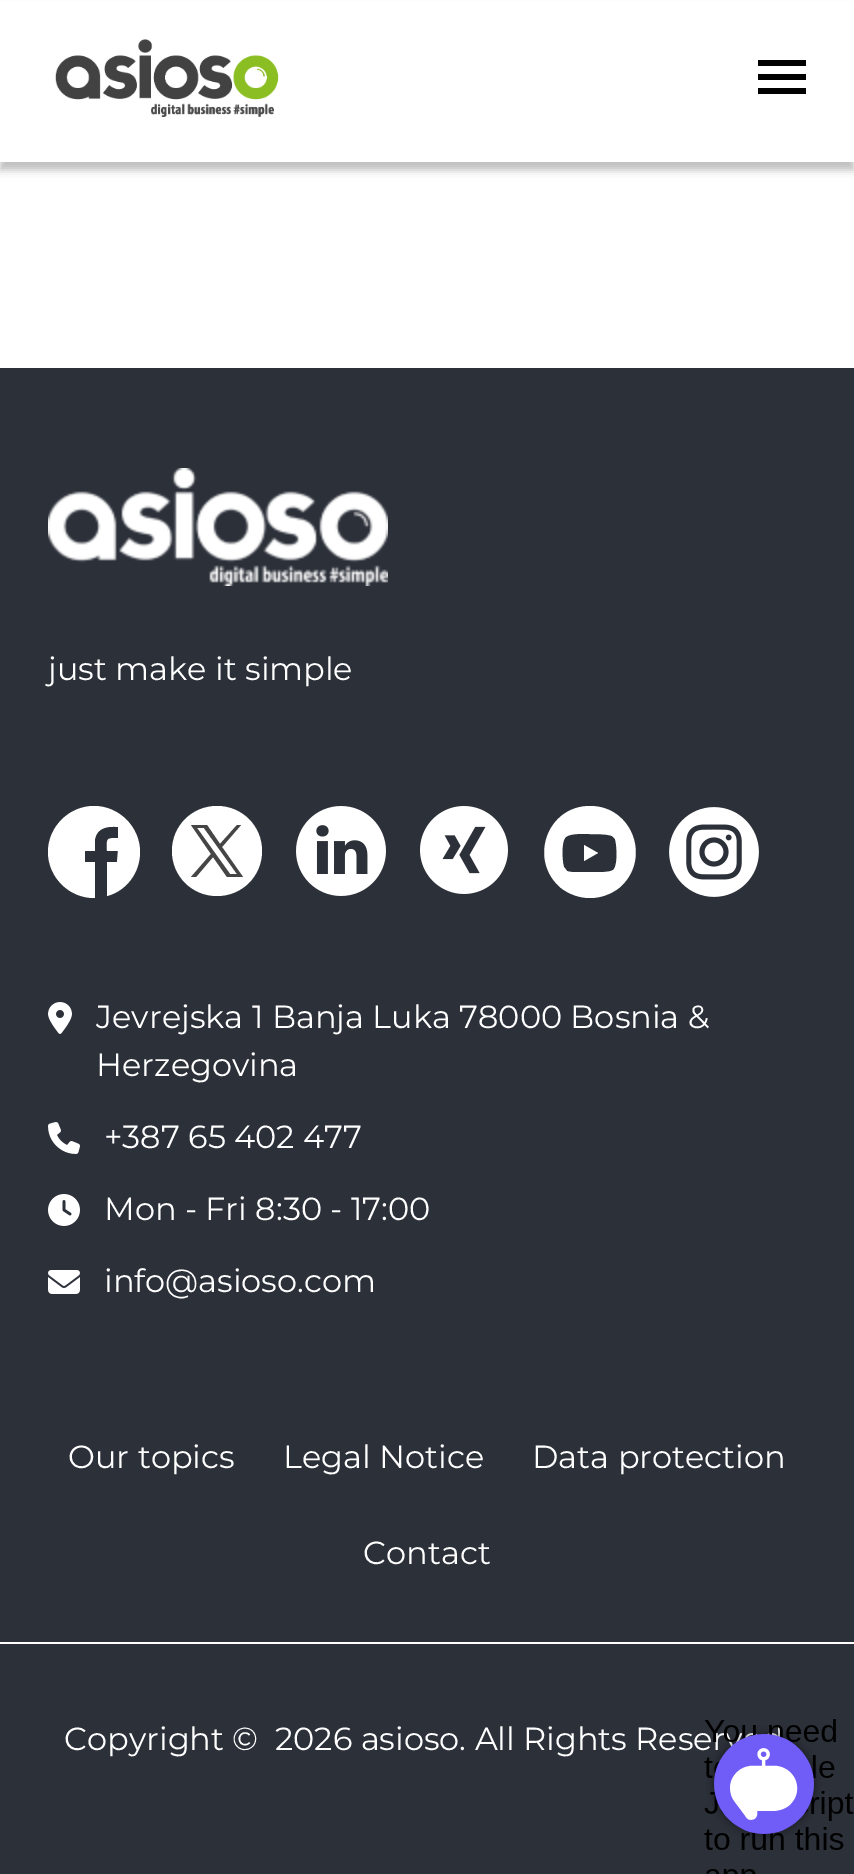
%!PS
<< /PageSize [854 1874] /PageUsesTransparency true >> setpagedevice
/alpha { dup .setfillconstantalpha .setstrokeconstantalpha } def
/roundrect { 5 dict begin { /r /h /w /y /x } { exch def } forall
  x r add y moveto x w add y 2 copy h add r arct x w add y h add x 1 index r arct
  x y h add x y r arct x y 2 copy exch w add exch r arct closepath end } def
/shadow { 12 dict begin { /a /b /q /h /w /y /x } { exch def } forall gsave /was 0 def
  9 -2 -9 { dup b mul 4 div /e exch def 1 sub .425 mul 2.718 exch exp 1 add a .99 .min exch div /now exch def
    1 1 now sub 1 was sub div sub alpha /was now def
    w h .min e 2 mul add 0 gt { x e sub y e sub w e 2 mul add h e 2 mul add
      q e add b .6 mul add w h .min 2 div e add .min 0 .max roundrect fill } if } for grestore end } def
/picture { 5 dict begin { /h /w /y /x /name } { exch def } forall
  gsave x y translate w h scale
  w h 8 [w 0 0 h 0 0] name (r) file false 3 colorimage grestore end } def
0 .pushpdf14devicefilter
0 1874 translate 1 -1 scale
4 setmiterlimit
1 setgray
0 0 854 1874 rectfill
0 setgray
0 8 854 162 0 4 0.25 shadow
1 setgray
0 1 854 161 rectfill
(img1.rgb) 55 39 224 78 picture
0 setgray
758 60 48 6 rectfill
758 74 48 6 rectfill
758 88 48 6 rectfill
0.173 0.188 0.224 setrgbcolor
0 368 854 1506 rectfill
(img2.rgb) 48 468 340 118 picture
/Montserrat-Regular [32 0 0 -32 0 0] selectfont
1 setgray
48 680 moveto (just make it simple) show
newpath 140 852 moveto 140 827 119 806 94 806 curveto 69 806 48 827 48 852 curveto 48 877 69 898 94 898 curveto 95 898 lineto 95 862 lineto 85 862 lineto 85 851 lineto 95 851 lineto 95 839 lineto 97 827 109 826 118 827 curveto 118 838 lineto 105 838 107 839 107 851 curveto 118 851 lineto 117 862 lineto 107 862 lineto 107 896 lineto 126 891 140 873 140 852 curveto closepath fill
newpath 217 806 moveto 192 806 172 826 172 851 curveto 172 876 192 896 217 896 curveto 242 896 262 876 262 851 curveto 262 826 242 806 217 806 curveto closepath fill
0.271 setgray
newpath 222 847 moveto 241 825 lineto 237 825 lineto 220 844 lineto 207 825 lineto 191 825 lineto 211 854 lineto 191 877 lineto 196 877 lineto 213 857 lineto 227 877 lineto 243 877 lineto closepath 197 828 moveto 204 828 lineto 237 874 lineto 230 874 lineto closepath fill
(img3.rgb) 296 806 90 90 picture
(img4.rgb) 420 806 88 88 picture
1 setgray
newpath 590 898 moveto 579 898 569 894 561 888 curveto 528 860 547 806 590 806 curveto 633 806 652 860 619 888 curveto 611 894 601 898 590 898 curveto closepath 589 834 moveto 584 834 570 833 566 837 curveto 561 840 562 862 564 867 curveto 567 871 lineto 571 873 584 872 589 872 curveto 595 872 609 873 613 870 curveto 618 867 617 845 615 839 curveto 612 836 lineto 608 834 595 834 589 834 curveto closepath 584 861 moveto 584 845 lineto 598 853 lineto closepath fill
(img5.rgb) 669 807 90 90 picture
(img6.rgb) 48 1002 24 32 picture
96 1028 moveto (Jevrejska 1 Banja Luka 78000 Bosnia &) show
96 1076 moveto (Herzegovina) show
(img7.rgb) 48 1122 32 32 picture
104 1148 moveto (+387 65 402 477) show
(img8.rgb) 48 1194 32 32 picture
104 1220 moveto (Mon - Fri 8:30 - 17:00) show
(img9.rgb) 48 1270 32 24 picture
104 1292 moveto (info@asioso.com) show
68 1468 moveto (Our topics) show
283 1468 moveto (Legal Notice) show
532 1468 moveto (Data protection) show
363 1564 moveto (Contact) show
0 1642 854 2 rectfill
64 1750 moveto (Copyright ©  2026 asioso. All Rights Rese) show
(img10.rgb) 704 1719 150 155 picture
.poppdf14devicefilter showpage
